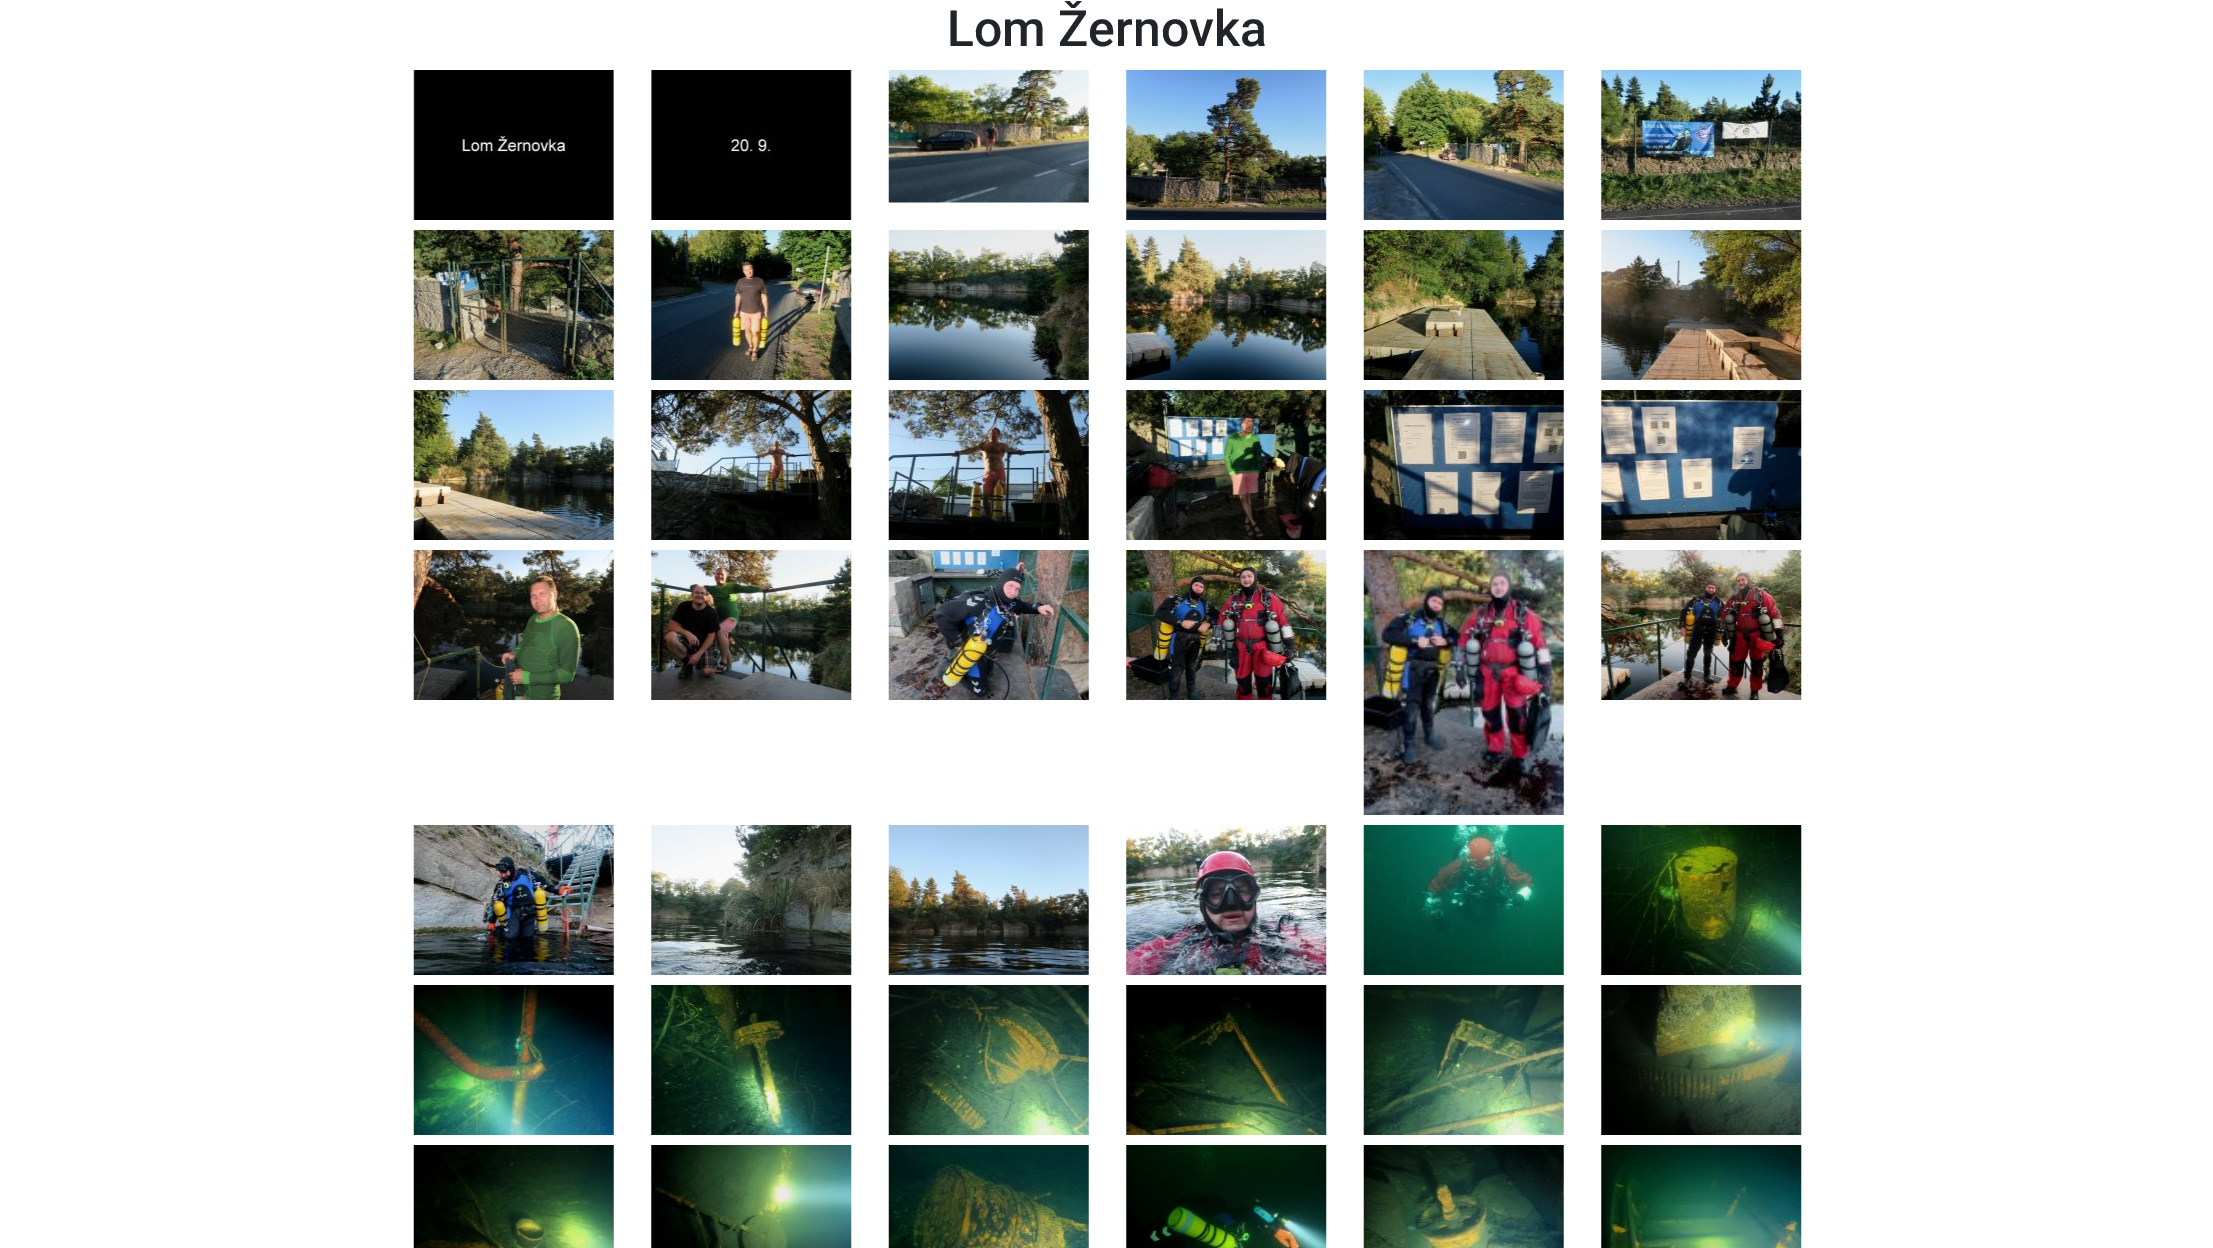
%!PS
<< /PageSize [2213 1248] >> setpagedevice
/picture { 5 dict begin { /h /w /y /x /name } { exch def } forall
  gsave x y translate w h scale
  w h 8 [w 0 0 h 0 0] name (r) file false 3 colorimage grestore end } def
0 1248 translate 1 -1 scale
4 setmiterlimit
1 setgray
0 0 2213 1248 rectfill
/Roboto-Medium [50 0 0 -50 0 0] selectfont
0.129 0.145 0.161 setrgbcolor
947 46 moveto (Lom Žernovka) show
(img1.rgb) 413 70 201 150 picture
(img2.rgb) 651 70 201 150 picture
(img3.rgb) 888 70 201 133 picture
(img4.rgb) 1126 70 201 150 picture
(img5.rgb) 1363 70 201 150 picture
(img6.rgb) 1601 70 201 150 picture
(img7.rgb) 413 230 201 150 picture
(img8.rgb) 651 230 201 150 picture
(img9.rgb) 888 230 201 150 picture
(img10.rgb) 1126 230 201 150 picture
(img11.rgb) 1363 230 201 150 picture
(img12.rgb) 1601 230 201 150 picture
(img13.rgb) 413 390 201 150 picture
(img14.rgb) 651 390 201 150 picture
(img15.rgb) 888 390 201 150 picture
(img16.rgb) 1126 390 201 150 picture
(img17.rgb) 1363 390 201 150 picture
(img18.rgb) 1601 390 201 150 picture
(img19.rgb) 413 550 201 150 picture
(img20.rgb) 651 550 201 150 picture
(img21.rgb) 888 550 201 150 picture
(img22.rgb) 1126 550 201 150 picture
(img23.rgb) 1363 550 201 265 picture
(img24.rgb) 1601 550 201 150 picture
(img25.rgb) 413 825 201 150 picture
(img26.rgb) 651 825 201 150 picture
(img27.rgb) 888 825 201 150 picture
(img28.rgb) 1126 825 201 150 picture
(img29.rgb) 1363 825 201 150 picture
(img30.rgb) 1601 825 201 150 picture
(img31.rgb) 413 985 201 150 picture
(img32.rgb) 651 985 201 150 picture
(img33.rgb) 888 985 201 150 picture
(img34.rgb) 1126 985 201 150 picture
(img35.rgb) 1363 985 201 150 picture
(img36.rgb) 1601 985 201 150 picture
(img37.rgb) 413 1145 201 103 picture
(img38.rgb) 651 1145 201 103 picture
(img39.rgb) 888 1145 201 103 picture
(img40.rgb) 1126 1145 201 103 picture
(img41.rgb) 1363 1145 201 103 picture
(img42.rgb) 1601 1145 201 103 picture
showpage
